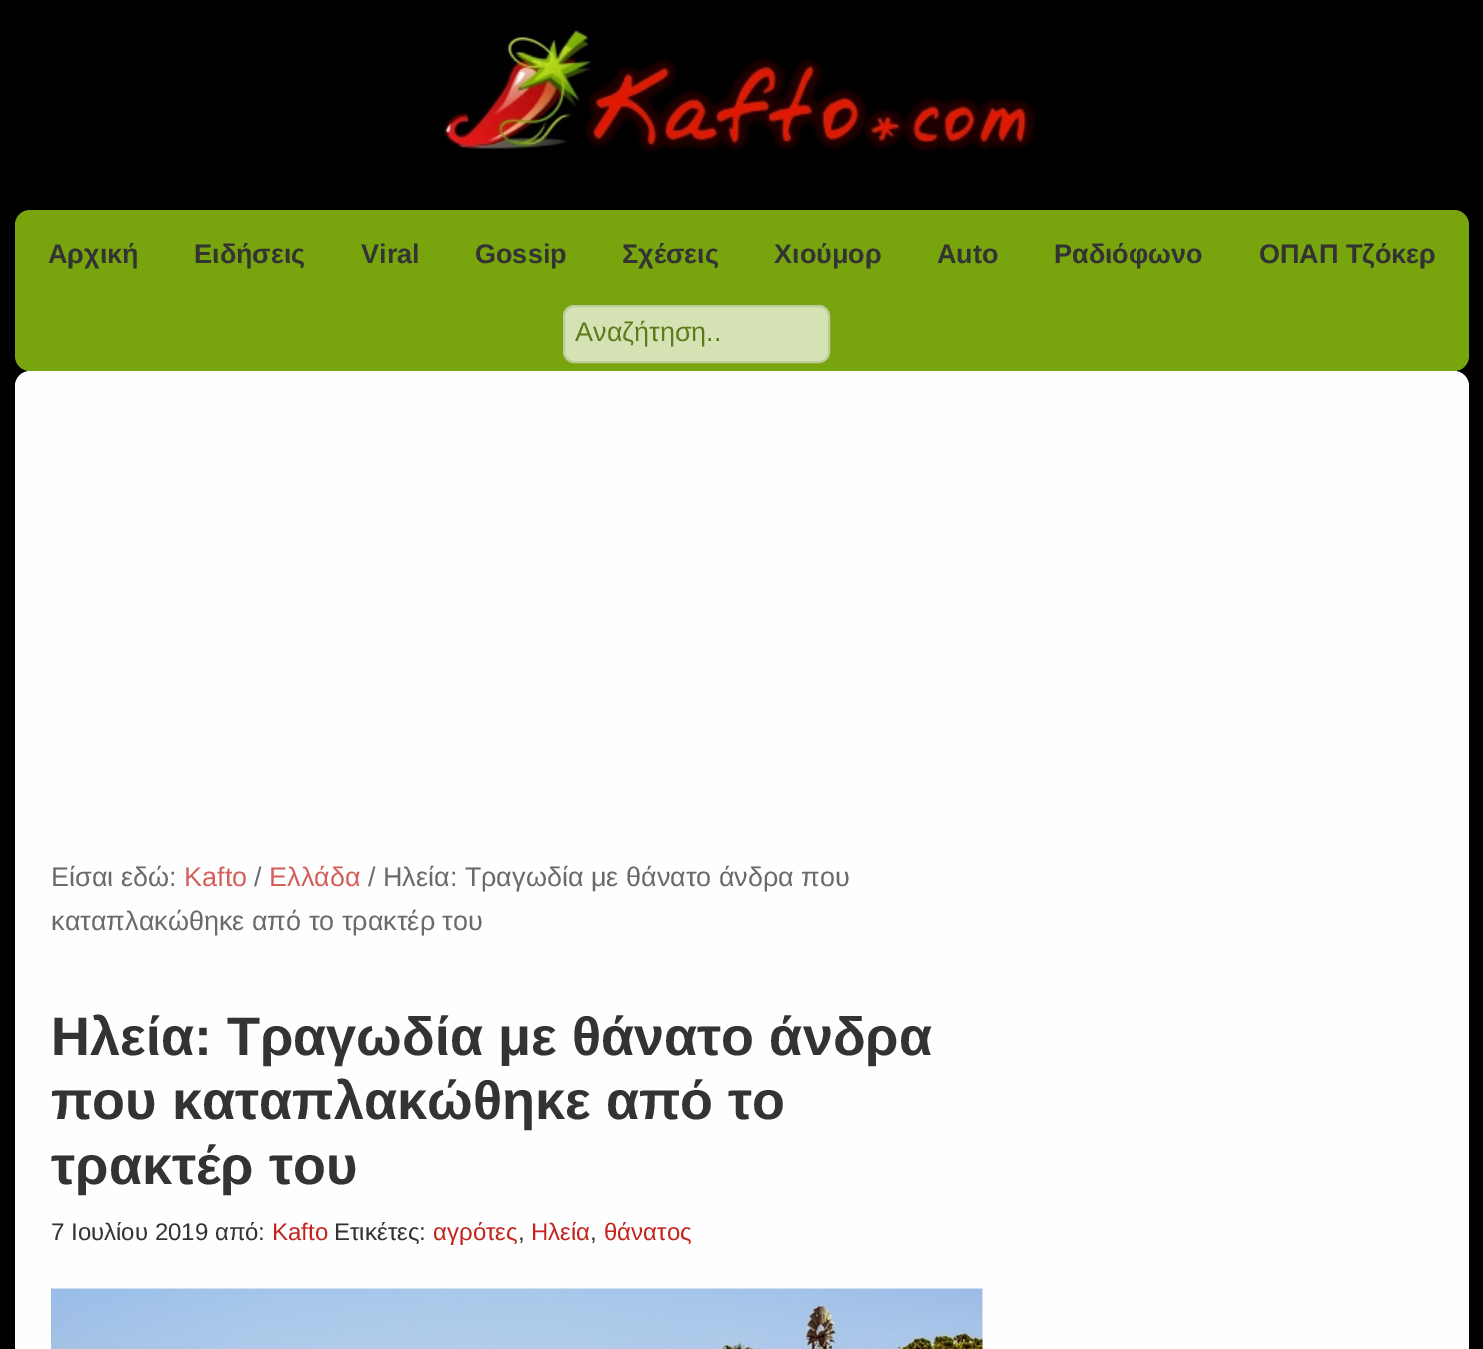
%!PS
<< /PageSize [1483 1349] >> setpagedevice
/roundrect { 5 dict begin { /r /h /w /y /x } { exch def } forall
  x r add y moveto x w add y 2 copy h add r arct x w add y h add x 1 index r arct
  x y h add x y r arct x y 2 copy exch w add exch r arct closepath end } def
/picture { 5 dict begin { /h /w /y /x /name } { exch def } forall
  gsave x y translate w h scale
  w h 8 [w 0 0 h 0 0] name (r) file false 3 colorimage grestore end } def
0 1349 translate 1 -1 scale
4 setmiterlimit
0 setgray
0 0 1483 1349 rectfill
(img1.rgb) 444 30 592 123 picture
0.471 0.647 0.055 setrgbcolor
15 210 1454 161 15 roundrect fill
/LiberationSans-Bold [27 0 0 -27 0 0] selectfont
0.2 setgray
48 263 moveto (Αρχική) show
194 263 moveto (Ειδήσεις) show
361 263 moveto (Viral) show
475 263 moveto (Gossip) show
622 263 moveto (Σχέσεις) show
774 263 moveto (Χιούμορ) show
937 263 moveto (Auto) show
1054 263 moveto (Ραδιόφωνο) show
1259 263 moveto (ΟΠΑΠ Τζόκερ) show
0.835 0.89 0.706 setrgbcolor
564 306 265 56 10 roundrect gsave fill grestore
0.745 0.8 0.616 setrgbcolor
2 setlinewidth
stroke
/LiberationSans-Regular [27 0 0 -27 0 0] selectfont
0.369 0.482 0.11 setrgbcolor
575 341 moveto (Αναζήτηση..) show
0.996 setgray
15 371 1454 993 15 roundrect fill
0.416 setgray
51 886 moveto (Είσαι εδώ:) show
0.827 0.376 0.353 setrgbcolor
184 886 moveto (Kafto) show
0.416 setgray
254 886 moveto (/) show
0.827 0.376 0.353 setrgbcolor
269 886 moveto (Ελλάδα) show
0.416 setgray
368 886 moveto (/ Ηλεία: Τραγωδία με θάνατο άνδρα που) show
51 930 moveto (καταπλακώθηκε από το τρακτέρ του) show
/LiberationSans-Bold [54 0 0 -54 0 0] selectfont
0.2 setgray
51 1055 moveto (Ηλεία: Τραγωδία με θάνατο άνδρα) show
51 1119 moveto (που καταπλακώθηκε από το) show
51 1184 moveto (τρακτέρ του) show
/LiberationSans-Regular [24 0 0 -24 0 0] selectfont
51 1240 moveto (7 Ιουλίου 2019 από:) show
0.765 0.145 0.114 setrgbcolor
272 1240 moveto (Kafto) show
0.2 setgray
334 1240 moveto (Ετικέτες:) show
0.765 0.145 0.114 setrgbcolor
433 1240 moveto (αγρότες) show
0.2 setgray
518 1240 moveto (,) show
0.765 0.145 0.114 setrgbcolor
531 1240 moveto (Ηλεία) show
0.2 setgray
590 1240 moveto (,) show
0.765 0.145 0.114 setrgbcolor
604 1240 moveto (θάνατος) show
(img2.rgb) 51 1288 932 61 picture
showpage
